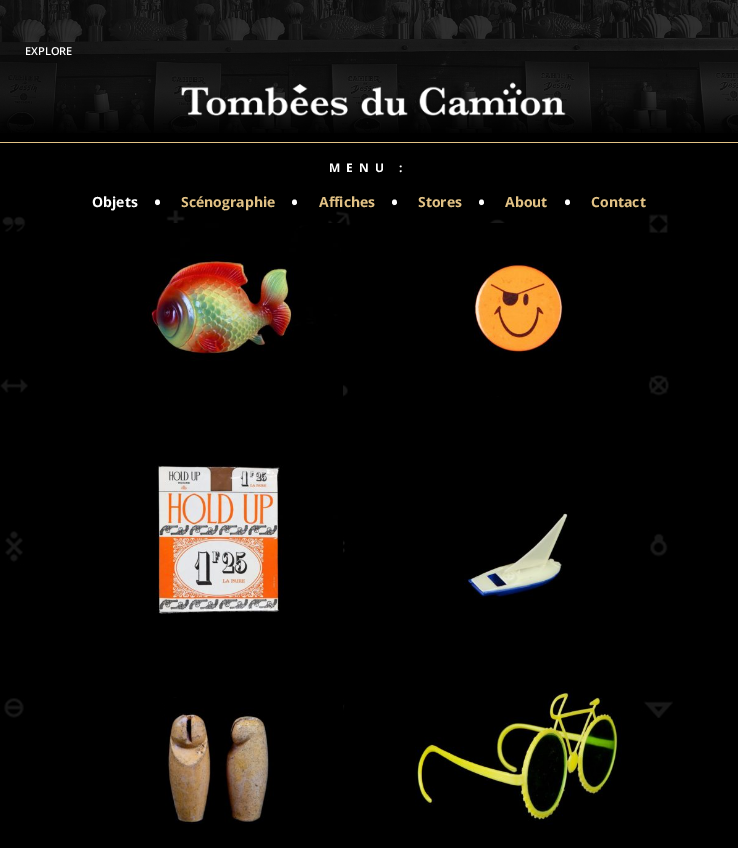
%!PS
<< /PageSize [738 848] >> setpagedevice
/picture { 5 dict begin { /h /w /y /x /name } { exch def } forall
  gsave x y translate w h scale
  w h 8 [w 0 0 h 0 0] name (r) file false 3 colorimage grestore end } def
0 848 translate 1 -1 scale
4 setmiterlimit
0 setgray
0 0 738 848 rectfill
(img1.rgb) 0 133 673 585 picture
(img2.rgb) 0 0 738 133 picture
/OpenSans-SemiBold [11 0 0 -11 0 0] selectfont
1 setgray
25 55 moveto (EXPLORE) show
(img3.rgb) 181 82 385 34 picture
0.886 0.761 0.522 setrgbcolor
0 142 738 1 rectfill
/OpenSans-Bold [12 0 0 -12 0 0] selectfont
1 setgray
329 172 moveto 6 0 (MENU :) ashow
/OpenSans-Bold [14 0 0 -14 0 0] selectfont
92 207 moveto (Objets) show
/OpenSans-Regular [24 0 0 -24 0 0] selectfont
153 211 moveto (•) show
/OpenSans-Bold [14 0 0 -14 0 0] selectfont
0.886 0.761 0.522 setrgbcolor
181 207 moveto (Scénographie) show
/OpenSans-Regular [24 0 0 -24 0 0] selectfont
1 setgray
290 211 moveto (•) show
/OpenSans-Bold [14 0 0 -14 0 0] selectfont
0.886 0.761 0.522 setrgbcolor
319 207 moveto (Affiches) show
/OpenSans-Regular [24 0 0 -24 0 0] selectfont
1 setgray
390 211 moveto (•) show
/OpenSans-Bold [14 0 0 -14 0 0] selectfont
0.886 0.761 0.522 setrgbcolor
418 207 moveto (Stores) show
/OpenSans-Regular [24 0 0 -24 0 0] selectfont
1 setgray
477 211 moveto (•) show
/OpenSans-Bold [14 0 0 -14 0 0] selectfont
0.886 0.761 0.522 setrgbcolor
505 207 moveto (About) show
/OpenSans-Regular [24 0 0 -24 0 0] selectfont
1 setgray
563 211 moveto (•) show
/OpenSans-Bold [14 0 0 -14 0 0] selectfont
0.886 0.761 0.522 setrgbcolor
591 207 moveto (Contact) show
(img4.rgb) 146 223 197 174 picture
(img5.rgb) 474 223 89 173 picture
(img6.rgb) 155 463 188 151 picture
(img7.rgb) 464 510 104 89 picture
(img8.rgb) 165 698 178 126 picture
(img9.rgb) 415 688 207 137 picture
showpage
